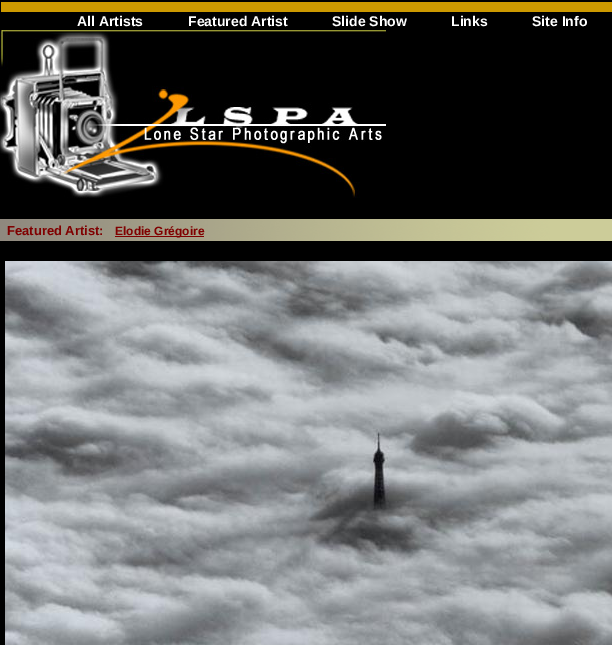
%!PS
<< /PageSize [612 645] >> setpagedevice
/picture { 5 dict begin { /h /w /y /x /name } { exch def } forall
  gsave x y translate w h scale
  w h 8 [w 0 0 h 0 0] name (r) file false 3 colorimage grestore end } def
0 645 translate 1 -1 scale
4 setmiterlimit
0 setgray
0 0 612 645 rectfill
0.8 0.6 0 setrgbcolor
1 2 611 10 rectfill
/LiberationSans-Bold [14 0 0 -14 0 0] selectfont
1 setgray
77 26 moveto (All Artists) show
188 26 moveto (Featured Artist) show
332 26 moveto (Slide Show) show
451 26 moveto (Links) show
532 26 moveto (Site Info) show
(img1.rgb) 0 30 386 168 picture
(img2.rgb) 0 219 612 22 picture
/LiberationSans-Bold [13 0 0 -13 0 0] selectfont
0.502 0 0 setrgbcolor
7 235 moveto (Featured Artist:) show
115 236 89 1 rectfill
/LiberationSans-Bold [12 0 0 -12 0 0] selectfont
115 235 moveto (Elodie Grégoire) show
(img3.rgb) 5 261 607 384 picture
showpage
